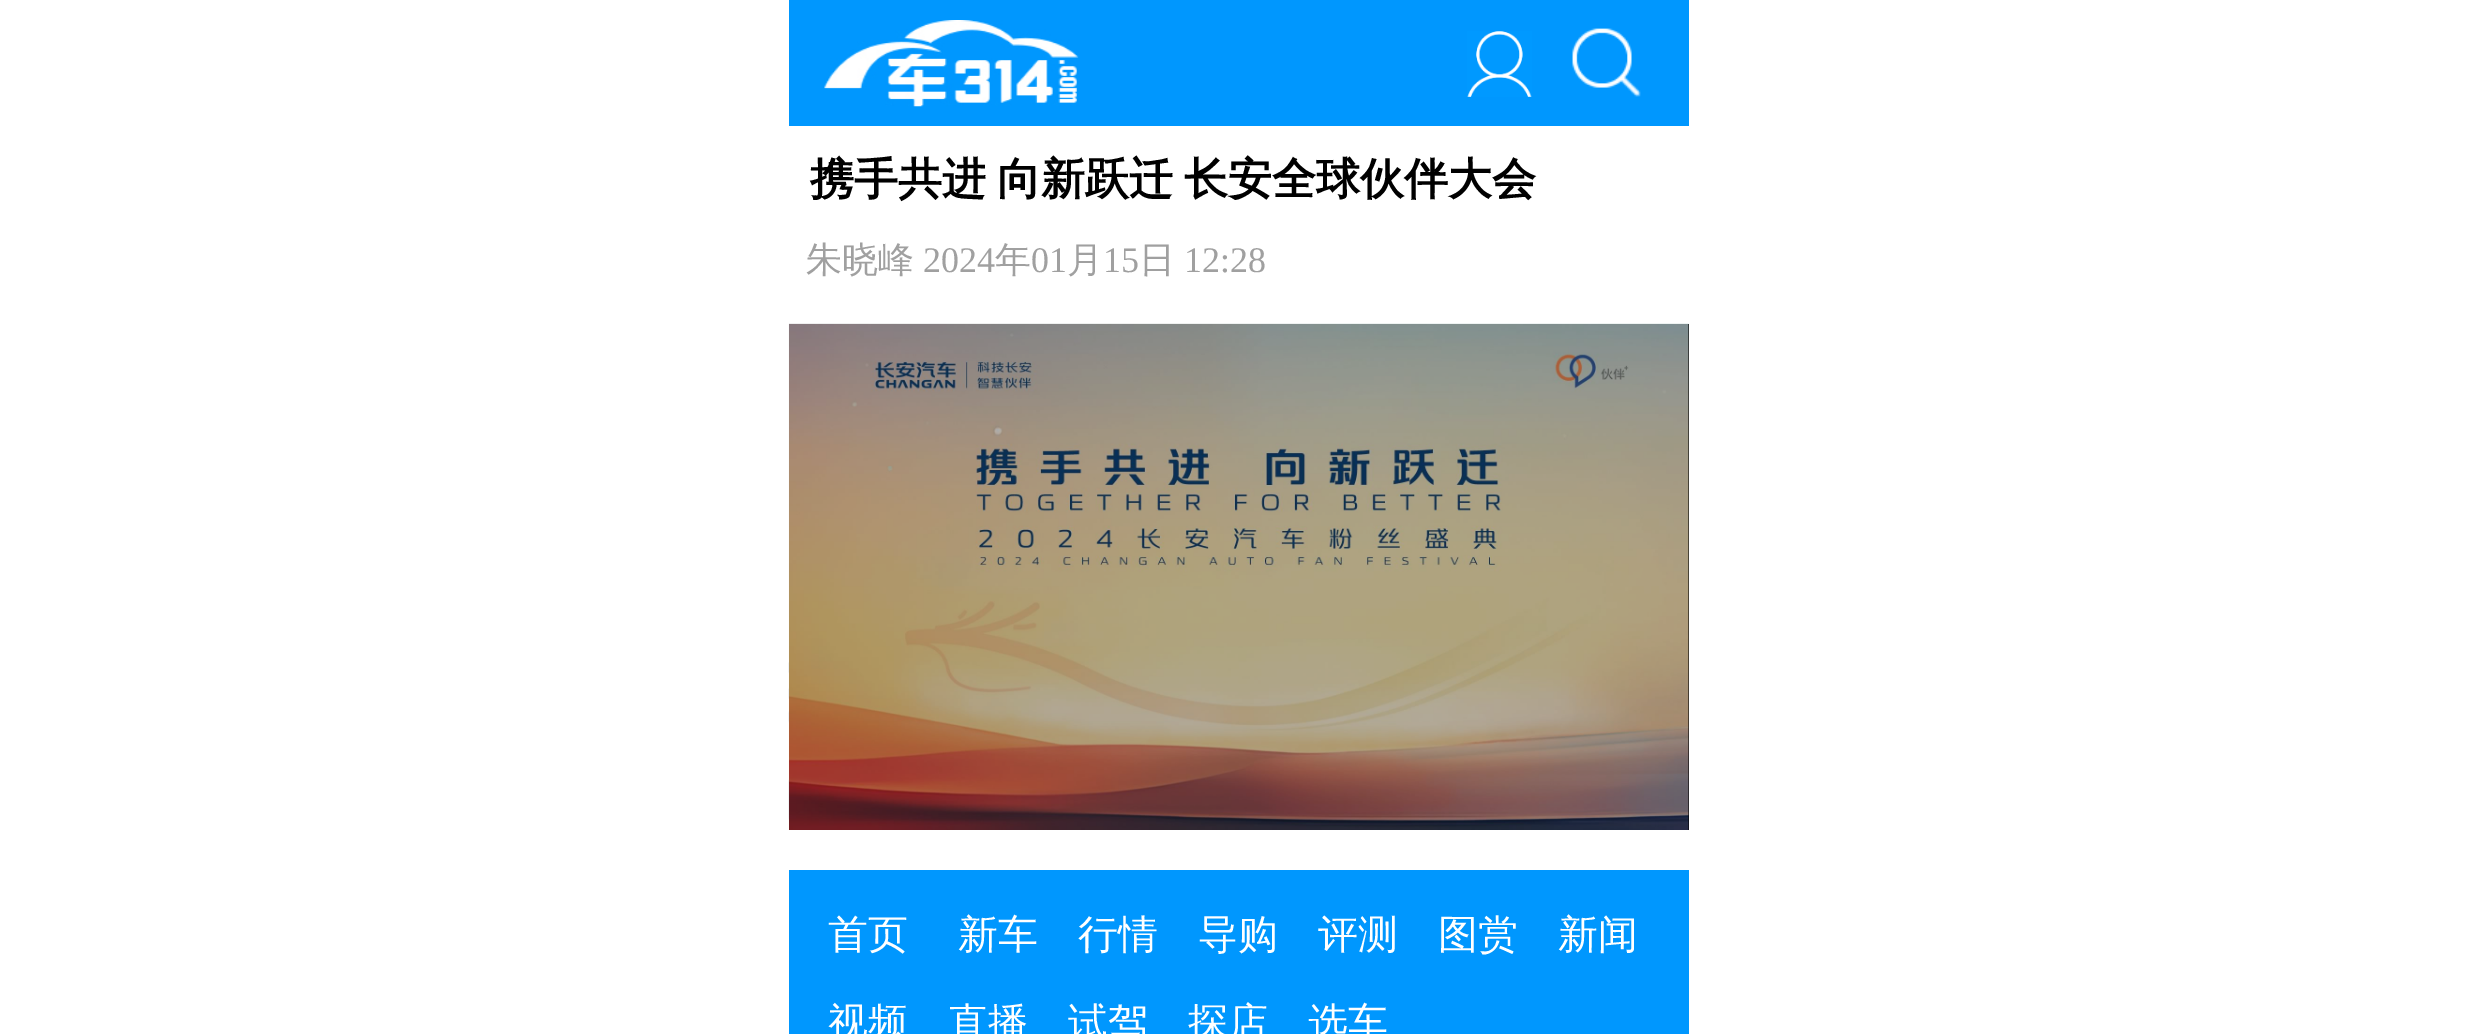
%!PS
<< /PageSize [2476 1034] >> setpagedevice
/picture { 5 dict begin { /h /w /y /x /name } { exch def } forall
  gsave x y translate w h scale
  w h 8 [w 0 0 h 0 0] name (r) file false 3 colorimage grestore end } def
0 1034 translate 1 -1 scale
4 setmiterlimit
1 setgray
0 0 2476 1034 rectfill
0 0.592 0.996 setrgbcolor
789 0 900 126 rectfill
(img1.rgb) 824 20 255 87 picture
(img2.rgb) 1467 31 65 66 picture
(img3.rgb) 1572 28 69 69 picture
/WenQuanYiZenHei-Bold [44 0 0 -44 0 0] selectfont
0 setgray
810 194 moveto -2 0 32 (携手共进 向新跃迁 长安全球伙伴大会) widthshow
/WenQuanYiZenHei-Medium [36 0 0 -36 0 0] selectfont
0.627 setgray
806 272 moveto (朱晓峰) show
/LiberationSerif-Regular [36 0 0 -36 0 0] selectfont
923 272 moveto (2024) show
/WenQuanYiZenHei-Medium [36 0 0 -36 0 0] selectfont
995 272 moveto (年) show
/LiberationSerif-Regular [36 0 0 -36 0 0] selectfont
1031 272 moveto (01) show
/WenQuanYiZenHei-Medium [36 0 0 -36 0 0] selectfont
1067 272 moveto (月) show
/LiberationSerif-Regular [36 0 0 -36 0 0] selectfont
1103 272 moveto (15) show
/WenQuanYiZenHei-Medium [36 0 0 -36 0 0] selectfont
1139 272 moveto (日) show
/LiberationSerif-Regular [36 0 0 -36 0 0] selectfont
1184 272 moveto (12:28) show
(img4.rgb) 788 323 901 507 picture
0 setgray
789 324 900 506 rectfill
(img5.rgb) 789 324 900 506 picture
0 0.592 0.996 setrgbcolor
789 870 900 164 rectfill
/WenQuanYiZenHei-Medium [40 0 0 -40 0 0] selectfont
1 setgray
828 948 moveto (首页) show
958 948 moveto (新车) show
1078 948 moveto (行情) show
1198 948 moveto (导购) show
1318 948 moveto (评测) show
1438 948 moveto (图赏) show
1558 948 moveto (新闻) show
828 1036 moveto (视频) show
948 1036 moveto (直播) show
1068 1036 moveto (试驾) show
1188 1036 moveto (探店) show
1308 1036 moveto (选车) show
showpage
